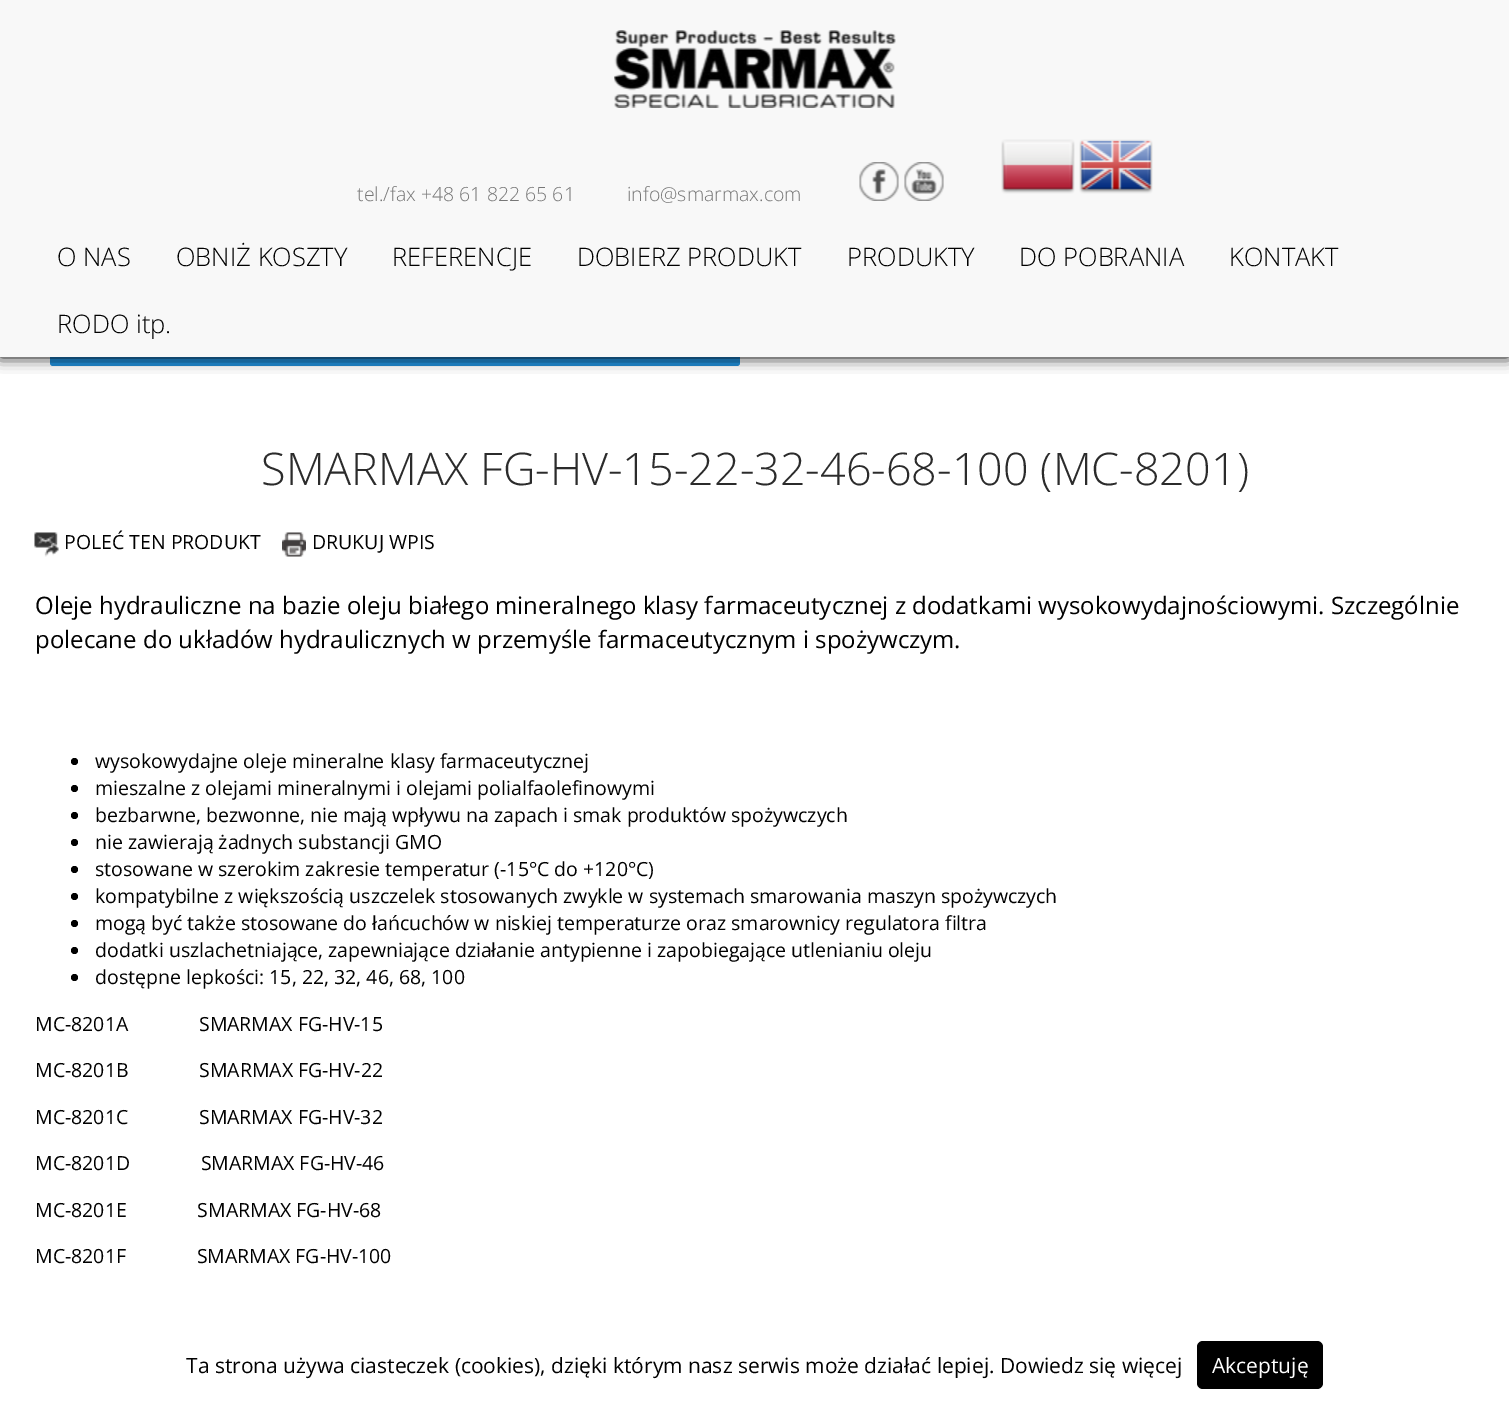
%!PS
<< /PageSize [1509 1403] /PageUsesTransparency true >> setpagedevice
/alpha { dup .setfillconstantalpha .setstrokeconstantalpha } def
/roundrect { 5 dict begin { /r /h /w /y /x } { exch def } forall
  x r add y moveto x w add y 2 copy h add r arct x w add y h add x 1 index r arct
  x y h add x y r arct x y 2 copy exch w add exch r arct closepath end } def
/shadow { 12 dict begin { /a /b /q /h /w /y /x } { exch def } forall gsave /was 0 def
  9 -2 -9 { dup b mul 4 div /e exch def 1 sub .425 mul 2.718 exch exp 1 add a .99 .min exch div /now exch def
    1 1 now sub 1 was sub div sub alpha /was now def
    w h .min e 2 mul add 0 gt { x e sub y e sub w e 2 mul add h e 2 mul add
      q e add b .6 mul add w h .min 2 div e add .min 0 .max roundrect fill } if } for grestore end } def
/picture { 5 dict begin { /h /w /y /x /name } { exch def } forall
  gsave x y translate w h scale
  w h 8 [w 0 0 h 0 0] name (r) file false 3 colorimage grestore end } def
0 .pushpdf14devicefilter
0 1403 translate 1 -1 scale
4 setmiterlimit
1 setgray
0 0 1509 1403 rectfill
0.129 0.557 0.855 setrgbcolor
50 270 690 96 3 roundrect fill
0 setgray
0 0 1509 357 0 7.5 1 shadow
0.973 setgray
0 0 1509 357 rectfill
(img1.rgb) 614 30 282 78 picture
/OpenSans-Light [19.5 0 0 -19.5 0 0] selectfont
0.467 setgray
357 201 moveto (tel./fax +48 61 822 65 61) show
627 201 moveto (info@smarmax.com) show
(img2.rgb) 859 162 40 39 picture
(img3.rgb) 904 162 40 39 picture
(img4.rgb) 1001 139 74 55 picture
(img5.rgb) 1079 139 74 55 picture
/OpenSans-Light [25.5 0 0 -25.5 0 0] selectfont
0 setgray
57 266 moveto (O NAS) show
176 266 moveto (OBNIŻ KOSZTY) show
392 266 moveto (REFERENCJE) show
577 266 moveto (DOBIERZ PRODUKT) show
847 266 moveto (PRODUKTY) show
1019 266 moveto (DO POBRANIA) show
1229 266 moveto (KONTAKT) show
57 333 moveto (RODO itp.) show
/OpenSans-Light [45 0 0 -45 0 0] selectfont
0.169 setgray
261 485 moveto (SMARMAX FG-HV-15-22-32-46-68-100 \(MC-8201\)) show
(img6.rgb) 34 532 25 25 picture
/OpenSans-Regular [19.5 0 0 -19.5 0 0] selectfont
0 setgray
64 549 moveto (POLEĆ TEN PRODUKT) show
(img7.rgb) 282 532 24 25 picture
312 549 moveto (DRUKUJ WPIS) show
/OpenSans-Regular [24 0 0 -24 0 0] selectfont
35 614 moveto (Oleje hydrauliczne na bazie oleju białego mineralnego klasy farmaceutycznej z dodatkami wysokowydajnościowymi. Szczególnie) show
35 648 moveto (polecane do układów hydraulicznych w przemyśle farmaceutycznym i spożywczym.) show
newpath 74.5 761.5 3.5 0 360 arc closepath fill
/OpenSans-Regular [19.5 0 0 -19.5 0 0] selectfont
95 768 moveto (wysokowydajne oleje mineralne klasy farmaceutycznej) show
newpath 74.5 788.5 3.5 0 360 arc closepath fill
95 795 moveto (mieszalne z olejami mineralnymi i olejami polialfaolefinowymi) show
newpath 74.5 815.5 3.5 0 360 arc closepath fill
95 822 moveto (bezbarwne, bezwonne, nie mają wpływu na zapach i smak produktów spożywczych) show
newpath 74.5 842.5 3.5 0 360 arc closepath fill
95 849 moveto (nie zawierają żadnych substancji GMO) show
newpath 74.5 869.5 3.5 0 360 arc closepath fill
95 876 moveto (stosowane w szerokim zakresie temperatur \(-15°C do +120°C\)) show
newpath 74.5 896.5 3.5 0 360 arc closepath fill
95 903 moveto (kompatybilne z większością uszczelek stosowanych zwykle w systemach smarowania maszyn spożywczych) show
newpath 74.5 923.5 3.5 0 360 arc closepath fill
95 930 moveto (mogą być także stosowane do łańcuchów w niskiej temperaturze oraz smarownicy regulatora filtra) show
newpath 74.5 950.5 3.5 0 360 arc closepath fill
95 957 moveto (dodatki uszlachetniające, zapewniające działanie antypienne i zapobiegające utlenianiu oleju) show
newpath 74.5 977.5 3.5 0 360 arc closepath fill
95 984 moveto (dostępne lepkości: 15, 22, 32, 46, 68, 100) show
35 1031 moveto (MC-8201A              SMARMAX FG-HV-15) show
35 1077 moveto (MC-8201B              SMARMAX FG-HV-22) show
35 1124 moveto (MC-8201C              SMARMAX FG-HV-32) show
35 1170 moveto (MC-8201D              SMARMAX FG-HV-46) show
35 1217 moveto (MC-8201E              SMARMAX FG-HV-68) show
35 1263 moveto (MC-8201F              SMARMAX FG-HV-100) show
/OpenSans-Regular [21 0 0 -21 0 0] selectfont
186 1373 moveto (Ta strona używa ciasteczek \(cookies\), dzięki którym nasz serwis może działać lepiej. Dowiedz się więcej) show
1197 1341 126 48 6 roundrect fill
1 setgray
1212 1373 moveto (Akceptuję) show
.poppdf14devicefilter showpage
